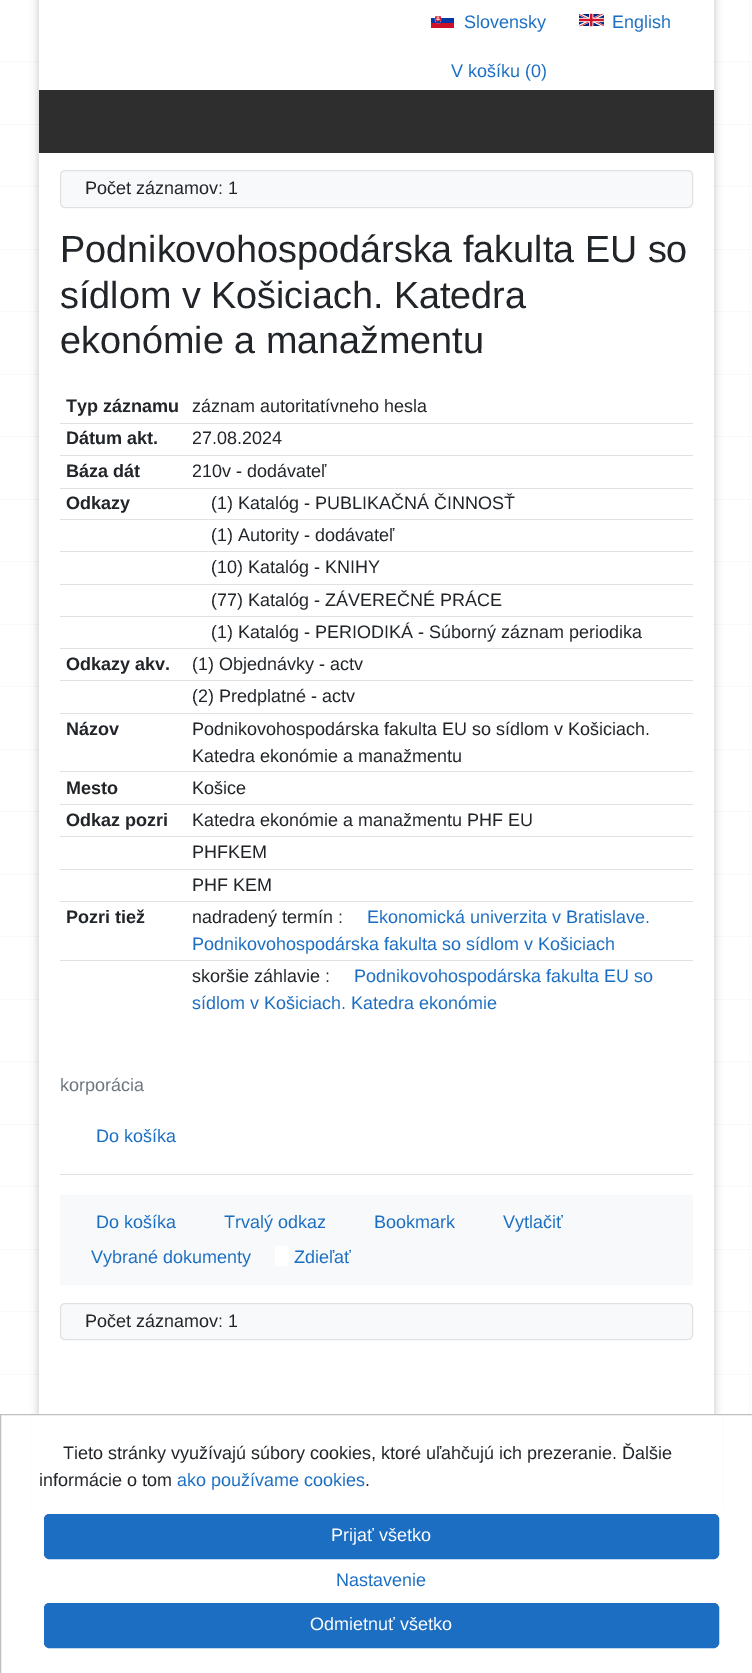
%!PS
<< /PageSize [752 1673] /PageUsesTransparency true >> setpagedevice
/alpha { dup .setfillconstantalpha .setstrokeconstantalpha } def
/roundrect { 5 dict begin { /r /h /w /y /x } { exch def } forall
  x r add y moveto x w add y 2 copy h add r arct x w add y h add x 1 index r arct
  x y h add x y r arct x y 2 copy exch w add exch r arct closepath end } def
/shadow { 12 dict begin { /a /b /q /h /w /y /x } { exch def } forall gsave /was 0 def
  9 -2 -9 { dup b mul 4 div /e exch def 1 sub .425 mul 2.718 exch exp 1 add a .99 .min exch div /now exch def
    1 1 now sub 1 was sub div sub alpha /was now def
    w h .min e 2 mul add 0 gt { x e sub y e sub w e 2 mul add h e 2 mul add
      q e add b .6 mul add w h .min 2 div e add .min 0 .max roundrect fill } if } for grestore end } def
/picture { 5 dict begin { /h /w /y /x /name } { exch def } forall
  gsave x y translate w h scale
  w h 8 [w 0 0 h 0 0] name (r) file false 3 colorimage grestore end } def
0 .pushpdf14devicefilter
0 1673 translate 1 -1 scale
4 setmiterlimit
1 setgray
0 0 752 1673 rectfill
0.973 0.976 0.98 setrgbcolor
749 0 1 1414 rectfill
(img1.rgb) 0 61 752 1314 picture
0 setgray
38 -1 677 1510 0 4 0.2 shadow
1 setgray
39 0 675 1414 rectfill
(img2.rgb) 431 16 23 12 picture
/LiberationSans-Regular [18 0 0 -18 0 0] selectfont
0.106 0.431 0.761 setrgbcolor
464 28 moveto (Slovensky) show
(img3.rgb) 579 13 25 14 picture
612 28 moveto (English) show
451 77 moveto (V košíku \(0\)) show
0.18 setgray
39 90 675 63 rectfill
0.973 0.976 0.98 setrgbcolor
60 170 633 38 5 roundrect fill
0.12 alpha
0.2 setgray
60.5 170.5 632 37 4.5 roundrect stroke
1 alpha
0.129 0.145 0.161 setrgbcolor
85 194 moveto (Počet záznamov: 1) show
/LiberationSans-Regular [37.75 0 0 -37.75 0 0] selectfont
60 262 moveto (Podnikovohospodárska fakulta EU so) show
60 308 moveto (sídlom v Košiciach. Katedra) show
60 353 moveto (ekonómie a manažmentu) show
/LiberationSans-Bold [18 0 0 -18 0 0] selectfont
66 412 moveto (Typ záznamu) show
/LiberationSans-Regular [18 0 0 -18 0 0] selectfont
192 412 moveto (záznam autoritatívneho hesla) show
/LiberationSans-Bold [18 0 0 -18 0 0] selectfont
66 444 moveto (Dátum akt.) show
0.871 0.886 0.902 setrgbcolor
60 423 633 1 rectfill
/LiberationSans-Regular [18 0 0 -18 0 0] selectfont
0.129 0.145 0.161 setrgbcolor
192 444 moveto (27.08.2024) show
/LiberationSans-Bold [18 0 0 -18 0 0] selectfont
66 477 moveto (Báza dát) show
0.871 0.886 0.902 setrgbcolor
60 455 633 1 rectfill
/LiberationSans-Regular [18 0 0 -18 0 0] selectfont
0.129 0.145 0.161 setrgbcolor
192 477 moveto (210v - dodávateľ) show
/LiberationSans-Bold [18 0 0 -18 0 0] selectfont
66 509 moveto (Odkazy) show
0.871 0.886 0.902 setrgbcolor
60 488 633 1 rectfill
/LiberationSans-Regular [18 0 0 -18 0 0] selectfont
0.129 0.145 0.161 setrgbcolor
211 509 moveto (\(1\) Katalóg - PUBLIKAČNÁ ČINNOSŤ) show
0.871 0.886 0.902 setrgbcolor
60 519 633 1 rectfill
0.129 0.145 0.161 setrgbcolor
211 541 moveto (\(1\) Autority - dodávateľ) show
0.871 0.886 0.902 setrgbcolor
60 551 633 1 rectfill
0.129 0.145 0.161 setrgbcolor
211 573 moveto (\(10\) Katalóg - KNIHY) show
0.871 0.886 0.902 setrgbcolor
60 584 633 1 rectfill
0.129 0.145 0.161 setrgbcolor
211 606 moveto (\(77\) Katalóg - ZÁVEREČNÉ PRÁCE) show
0.871 0.886 0.902 setrgbcolor
60 616 633 1 rectfill
0.129 0.145 0.161 setrgbcolor
211 638 moveto (\(1\) Katalóg - PERIODIKÁ - Súborný záznam periodika) show
/LiberationSans-Bold [18 0 0 -18 0 0] selectfont
66 670 moveto (Odkazy akv.) show
0.871 0.886 0.902 setrgbcolor
60 648 633 1 rectfill
/LiberationSans-Regular [18 0 0 -18 0 0] selectfont
0.129 0.145 0.161 setrgbcolor
192 670 moveto (\(1\) Objednávky - actv) show
0.871 0.886 0.902 setrgbcolor
60 680 633 1 rectfill
0.129 0.145 0.161 setrgbcolor
192 702 moveto (\(2\) Predplatné - actv) show
/LiberationSans-Bold [18 0 0 -18 0 0] selectfont
66 735 moveto (Názov) show
0.871 0.886 0.902 setrgbcolor
60 713 633 1 rectfill
/LiberationSans-Regular [18 0 0 -18 0 0] selectfont
0.129 0.145 0.161 setrgbcolor
192 735 moveto (Podnikovohospodárska fakulta EU so sídlom v Košiciach.) show
192 762 moveto (Katedra ekonómie a manažmentu) show
/LiberationSans-Bold [18 0 0 -18 0 0] selectfont
66 794 moveto (Mesto) show
0.871 0.886 0.902 setrgbcolor
60 771 633 1 rectfill
/LiberationSans-Regular [18 0 0 -18 0 0] selectfont
0.129 0.145 0.161 setrgbcolor
192 794 moveto (Košice) show
/LiberationSans-Bold [18 0 0 -18 0 0] selectfont
66 826 moveto (Odkaz pozri) show
0.871 0.886 0.902 setrgbcolor
60 804 633 1 rectfill
/LiberationSans-Regular [18 0 0 -18 0 0] selectfont
0.129 0.145 0.161 setrgbcolor
192 826 moveto (Katedra ekonómie a manažmentu PHF EU) show
0.871 0.886 0.902 setrgbcolor
60 836 633 1 rectfill
0.129 0.145 0.161 setrgbcolor
192 858 moveto (PHFKEM) show
0.871 0.886 0.902 setrgbcolor
60 869 633 1 rectfill
0.129 0.145 0.161 setrgbcolor
192 891 moveto (PHF KEM) show
/LiberationSans-Bold [18 0 0 -18 0 0] selectfont
66 923 moveto (Pozri tiež) show
0.871 0.886 0.902 setrgbcolor
60 901 633 1 rectfill
/LiberationSans-Regular [18 0 0 -18 0 0] selectfont
0.129 0.145 0.161 setrgbcolor
192 923 moveto (nadradený termín :) show
0.106 0.431 0.761 setrgbcolor
367 923 moveto (Ekonomická univerzita v Bratislave.) show
192 950 moveto (Podnikovohospodárska fakulta so sídlom v Košiciach) show
0.871 0.886 0.902 setrgbcolor
60 960 633 1 rectfill
0.129 0.145 0.161 setrgbcolor
192 982 moveto (skoršie záhlavie :) show
0.106 0.431 0.761 setrgbcolor
354 982 moveto (Podnikovohospodárska fakulta EU so) show
192 1009 moveto (sídlom v Košiciach. Katedra ekonómie) show
0.424 0.459 0.49 setrgbcolor
60 1091 moveto (korporácia) show
0.106 0.431 0.761 setrgbcolor
96 1142 moveto (Do košíka) show
0.871 0.886 0.902 setrgbcolor
60 1174 633 1 rectfill
0.973 0.976 0.98 setrgbcolor
60 1195 633 90 rectfill
0.106 0.431 0.761 setrgbcolor
96 1228 moveto (Do košíka) show
224 1228 moveto (Trvalý odkaz) show
374 1228 moveto (Bookmark) show
503 1228 moveto (Vytlačiť) show
91 1263 moveto (Vybrané dokumenty) show
294 1263 moveto (Zdieľať) show
1 setgray
275 1246 14 20 rectfill
0.973 0.976 0.98 setrgbcolor
60 1303 633 37 5 roundrect fill
0.12 alpha
0.2 setgray
60.5 1303.5 632 36 4.5 roundrect stroke
1 alpha
0.129 0.145 0.161 setrgbcolor
85 1327 moveto (Počet záznamov: 1) show
1 setgray
31 1415 691 101 rectfill
0.753 setgray
0.5 1414.5 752 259 rectstroke
0.129 0.145 0.161 setrgbcolor
63 1459 moveto (Tieto stránky využívajú súbory cookies, ktoré uľahčujú ich prezeranie. Ďalšie) show
39 1486 moveto (informácie o tom) show
0.106 0.431 0.761 setrgbcolor
177 1486 moveto (ako používame cookies) show
0.129 0.145 0.161 setrgbcolor
365 1486 moveto (.) show
0.106 0.431 0.761 setrgbcolor
44.5 1514.5 674 44 4.5 roundrect gsave fill grestore
stroke
1 setgray
331 1541 moveto (Prijať všetko) show
0.106 0.431 0.761 setrgbcolor
336 1586 moveto (Nastavenie) show
44.5 1603.5 674 44 4.5 roundrect gsave fill grestore
stroke
1 setgray
310 1630 moveto (Odmietnuť všetko) show
.poppdf14devicefilter showpage
